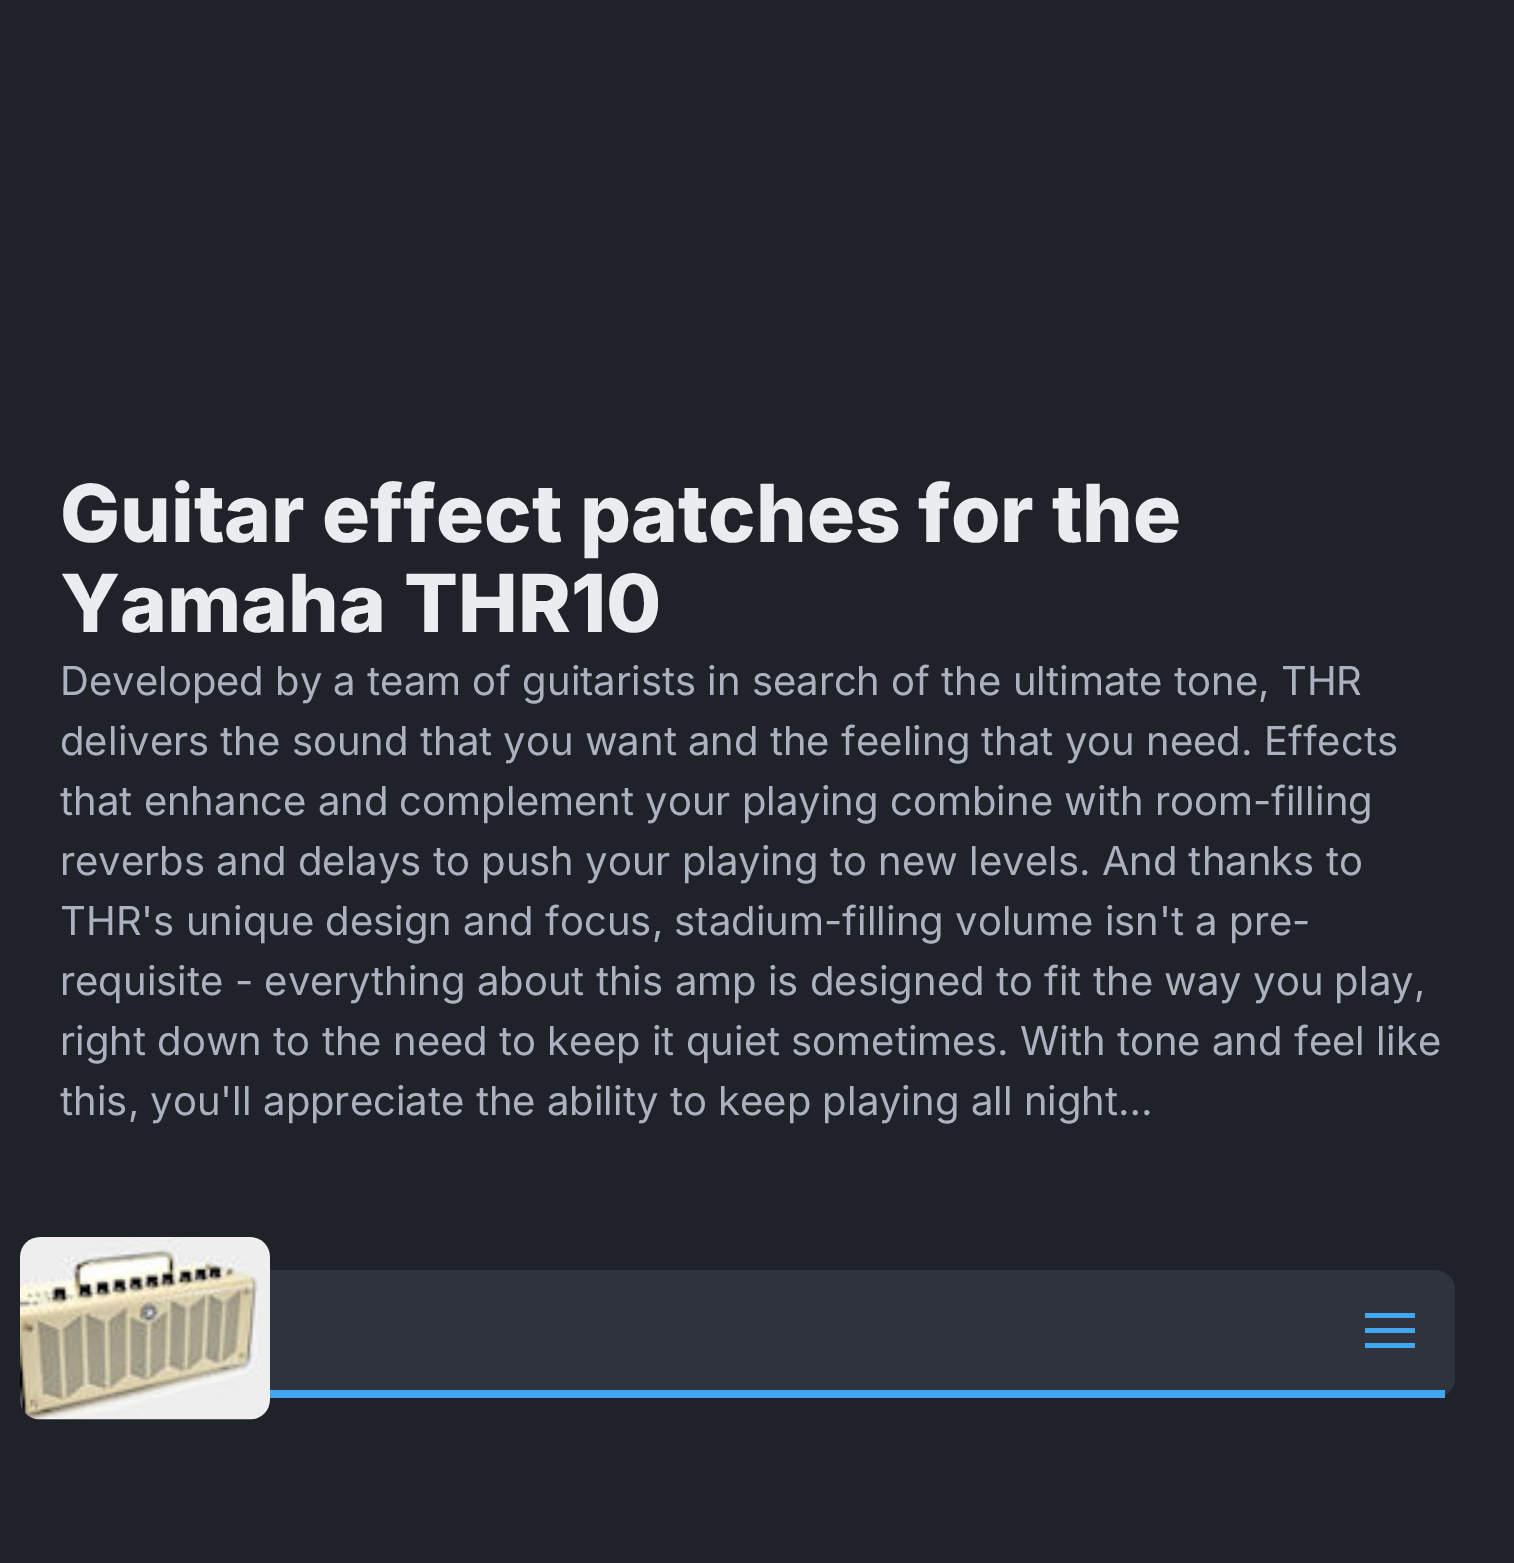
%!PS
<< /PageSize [1514 1563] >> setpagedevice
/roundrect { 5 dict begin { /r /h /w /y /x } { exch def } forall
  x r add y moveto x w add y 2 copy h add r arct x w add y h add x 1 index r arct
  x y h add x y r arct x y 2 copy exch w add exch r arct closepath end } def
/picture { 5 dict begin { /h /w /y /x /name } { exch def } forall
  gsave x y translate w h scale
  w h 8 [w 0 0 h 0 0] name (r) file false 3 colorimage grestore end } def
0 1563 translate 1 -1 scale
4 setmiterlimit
0.122 0.133 0.161 setrgbcolor
0 0 1514 1563 rectfill
/Inter-ExtraBold [80 0 0 -80 0 0] selectfont
0.922 0.925 0.941 setrgbcolor
60 542 moveto (Guitar effect patches for the) show
60 632 moveto (Yamaha THR10) show
/Inter-Regular [40 0 0 -40 0 0] selectfont
0.671 0.694 0.749 setrgbcolor
60 695 moveto (Developed by a team of guitarists in search of the ultimate tone, THR) show
60 755 moveto (delivers the sound that you want and the feeling that you need. Effects) show
60 815 moveto (that enhance and complement your playing combine with room-filling) show
60 875 moveto (reverbs and delays to push your playing to new levels. And thanks to) show
60 935 moveto (THR's unique design and focus, stadium-filling volume isn't a pre-) show
60 995 moveto (requisite - everything about this amp is designed to fit the way you play,) show
60 1055 moveto (right down to the need to keep it quiet sometimes. With tone and feel like) show
60 1115 moveto (this, you'll appreciate the ability to keep playing all night…) show
0.18 0.2 0.239 setrgbcolor
60 1270 1395 128 20 roundrect fill
0.259 0.655 0.941 setrgbcolor
270 1390 1175 8 rectfill
(img1.rgb) 20 1237 250 183 picture
1365 1313 50 5 rectfill
1365 1328 50 5 rectfill
1365 1343 50 5 rectfill
showpage
